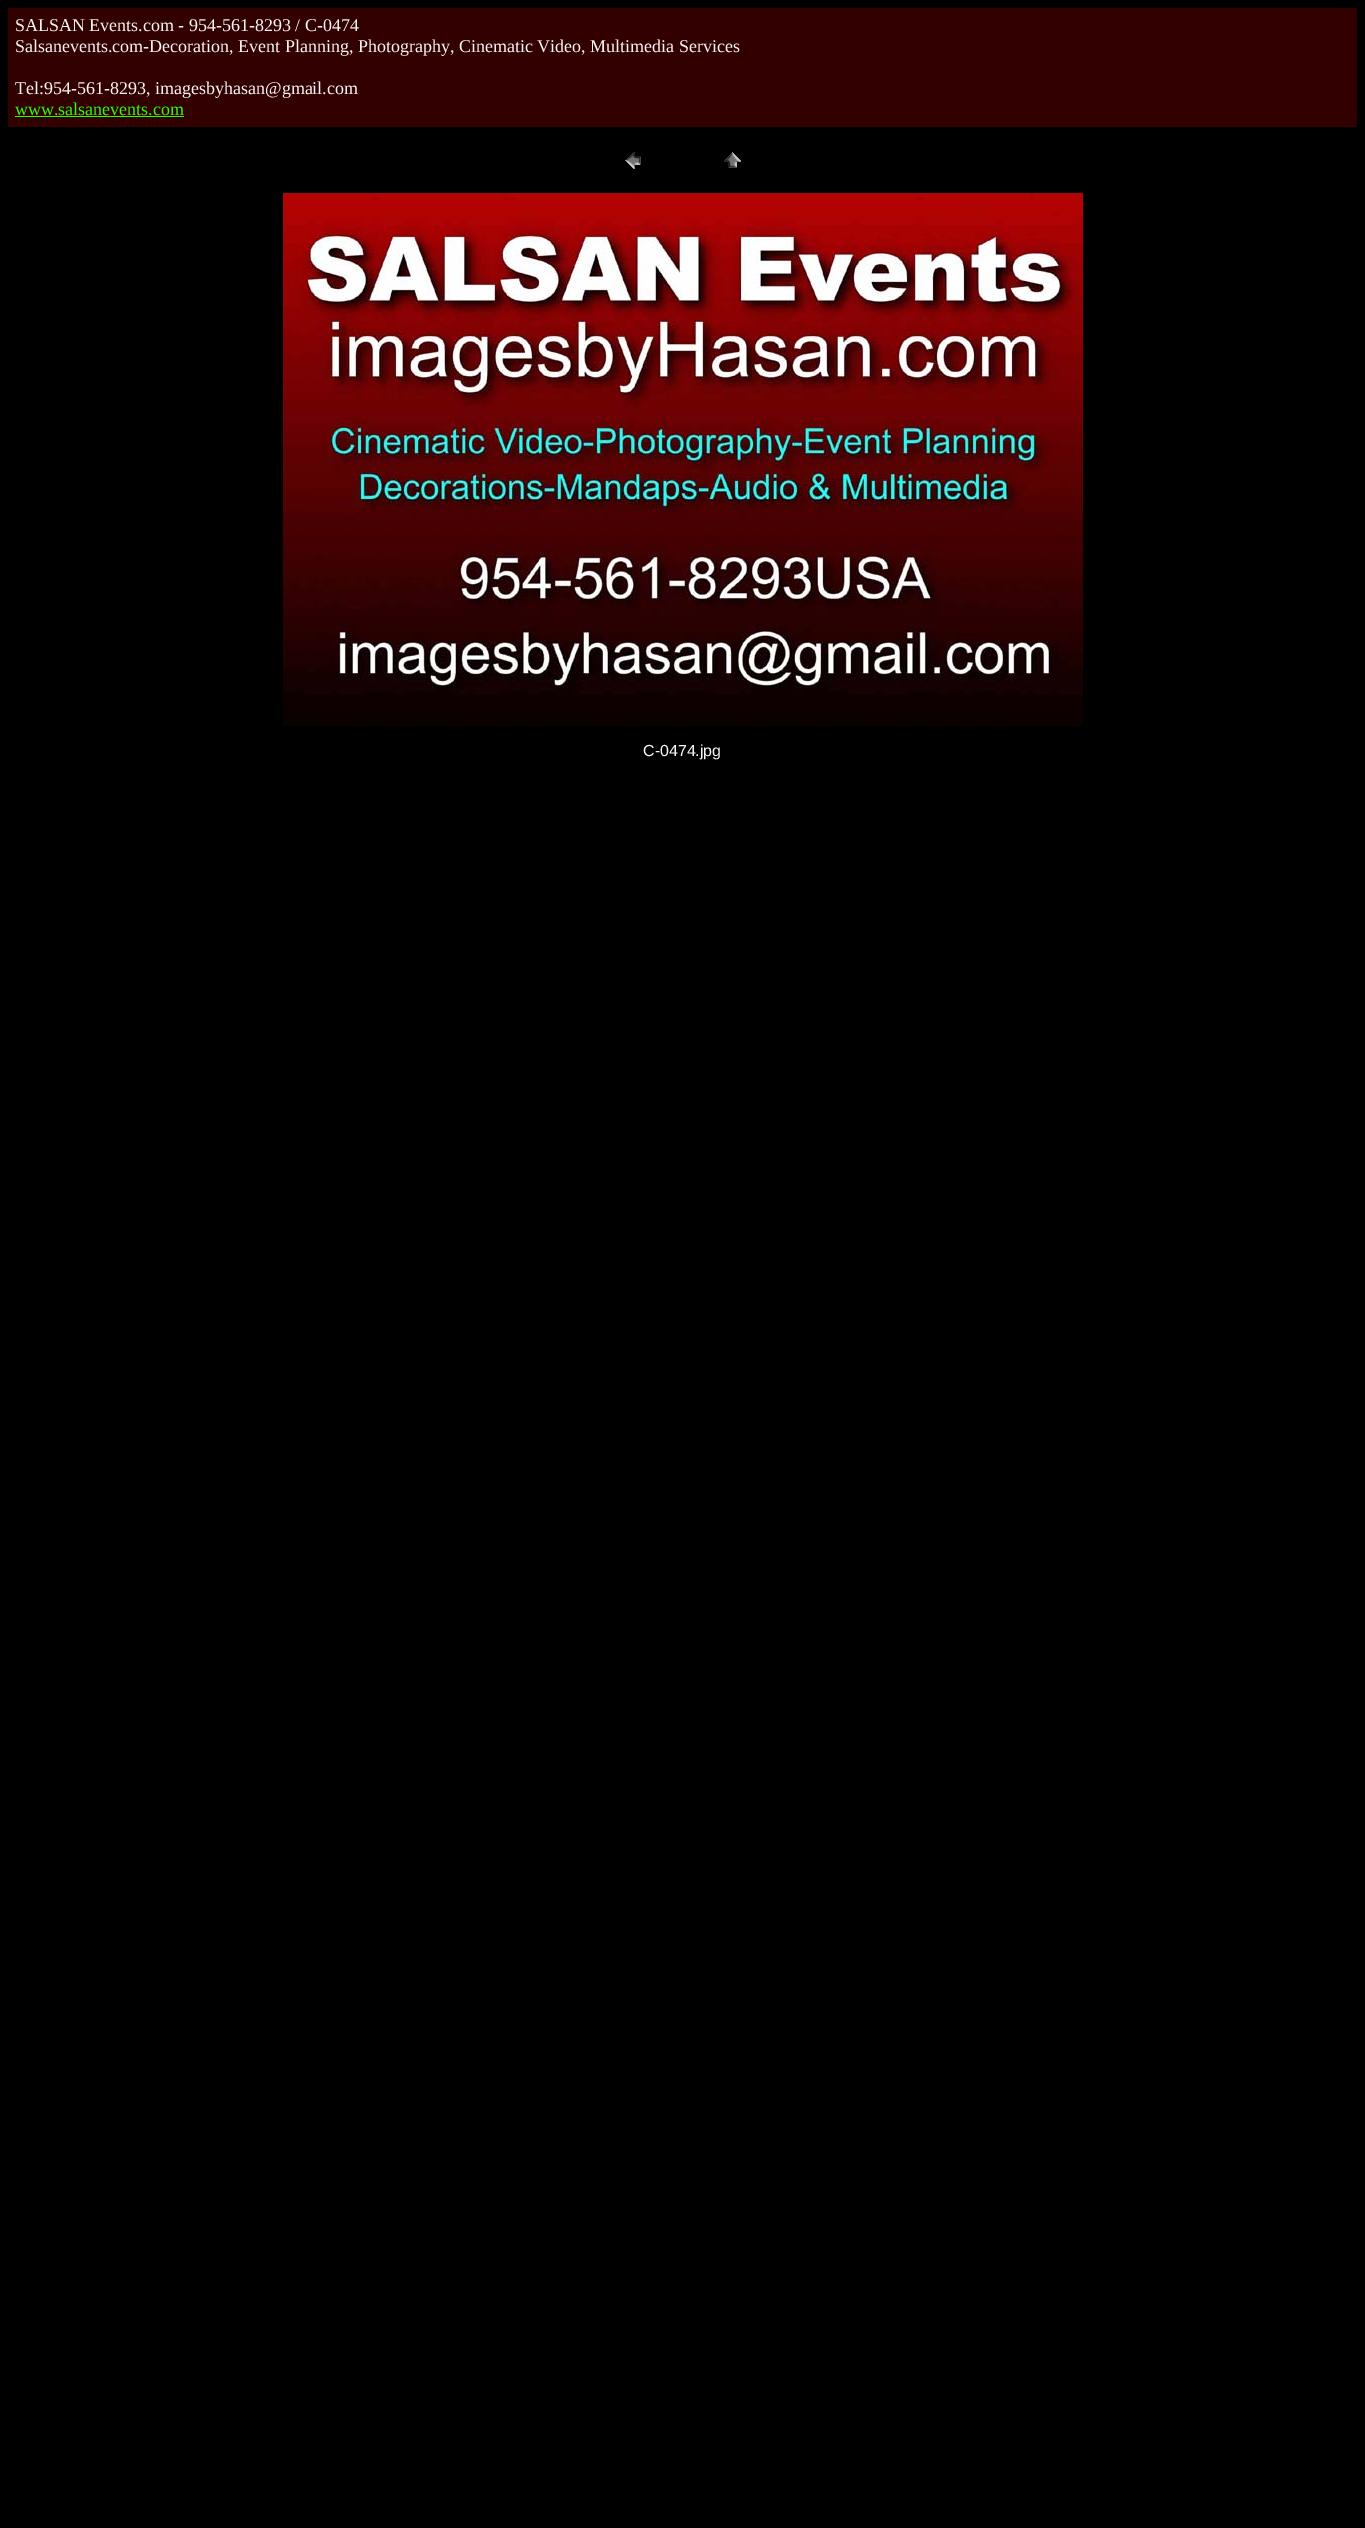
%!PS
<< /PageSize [1365 2528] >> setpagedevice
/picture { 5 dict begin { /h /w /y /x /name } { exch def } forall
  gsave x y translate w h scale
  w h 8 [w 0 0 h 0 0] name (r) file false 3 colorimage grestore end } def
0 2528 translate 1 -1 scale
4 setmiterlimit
0 setgray
0 0 1365 2528 rectfill
0.2 0 0 setrgbcolor
8 8 1349 119 rectfill
/LiberationSerif-Regular [18 0 0 -18 0 0] selectfont
0.98 0.965 0.965 setrgbcolor
15 31 moveto (SALSAN Events.com - 954-561-8293 / C-0474) show
15 52 moveto (Salsanevents.com-Decoration, Event Planning, Photography, Cinematic Video, Multimedia Services) show
15 94 moveto (Tel:954-561-8293, imagesbyhasan@gmail.com) show
0.165 1 0 setrgbcolor
15 115 moveto (www.salsanevents.com) show
15 116 169 1 rectfill
(img1.rgb) 625 152 16 17 picture
(img2.rgb) 724 152 17 16 picture
(img3.rgb) 283 193 800 533 picture
/LiberationSans-Regular [16 0 0 -16 0 0] selectfont
0.98 0.965 0.965 setrgbcolor
643 756 moveto (C-0474.jpg) show
showpage
